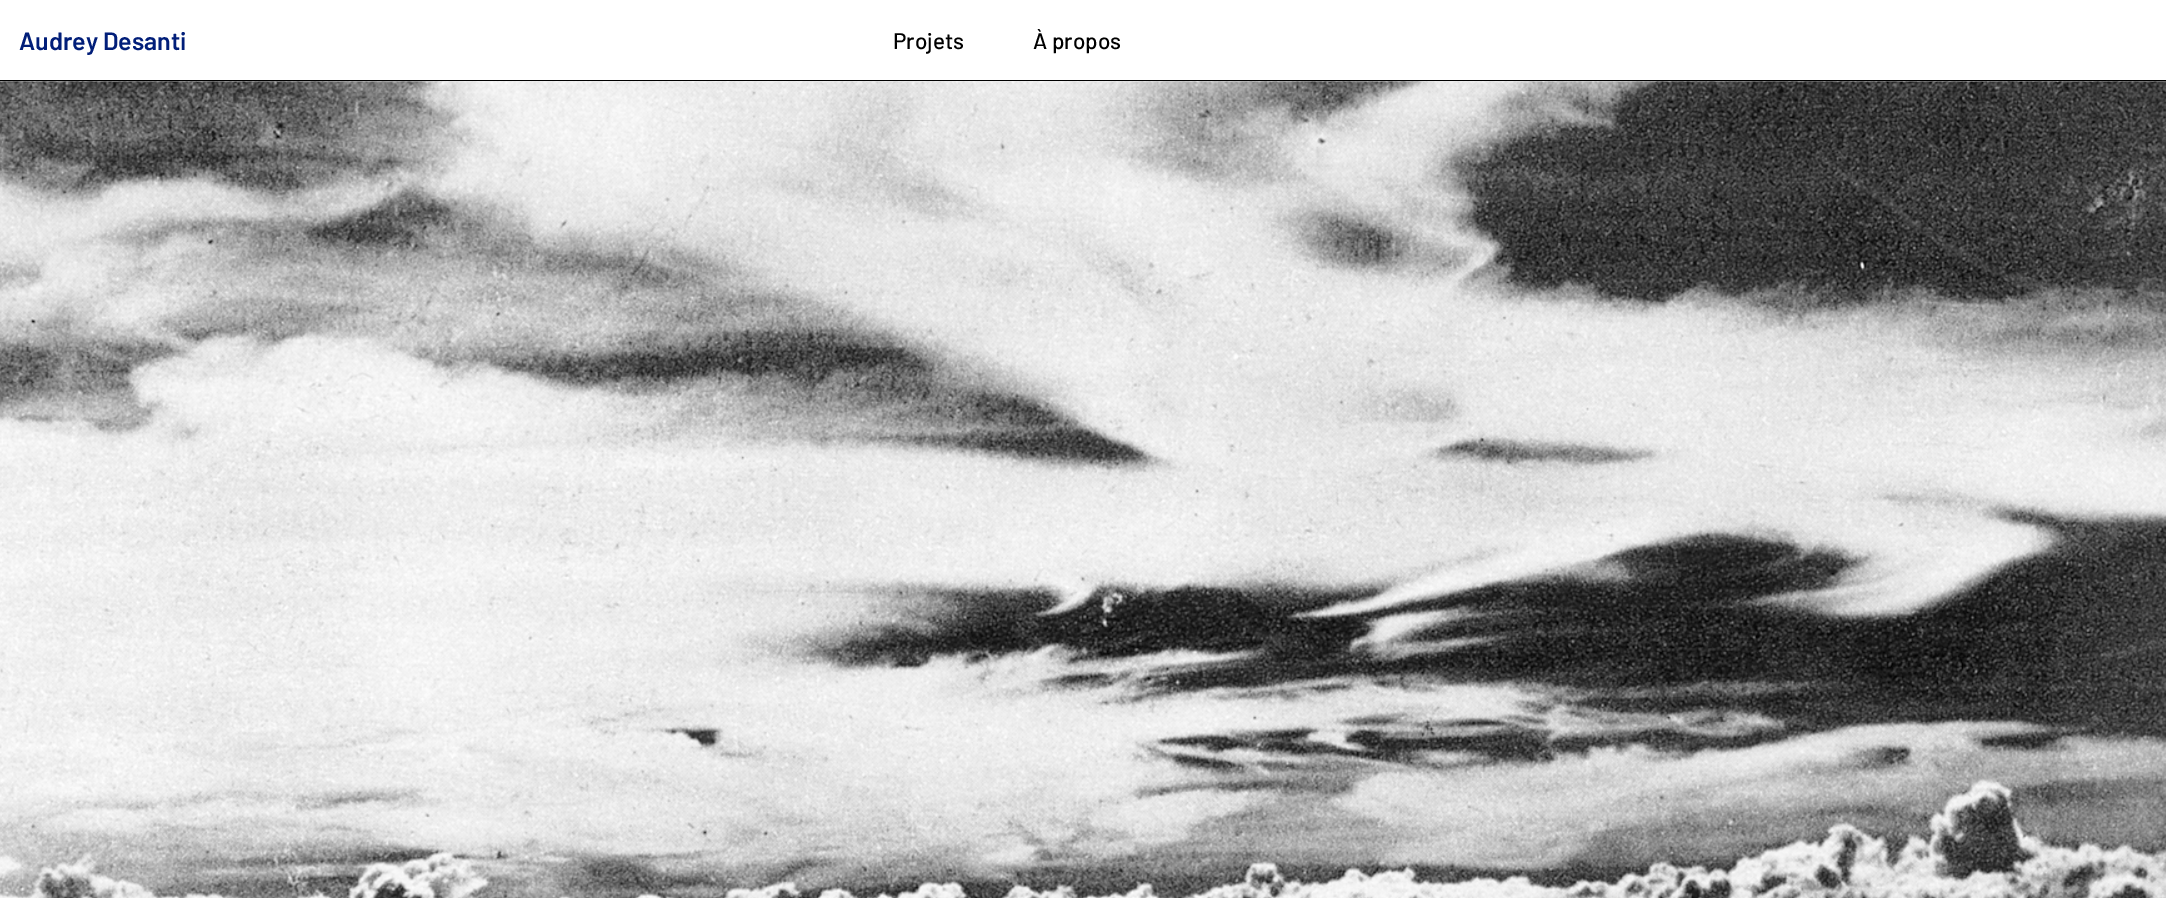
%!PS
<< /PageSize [2166 898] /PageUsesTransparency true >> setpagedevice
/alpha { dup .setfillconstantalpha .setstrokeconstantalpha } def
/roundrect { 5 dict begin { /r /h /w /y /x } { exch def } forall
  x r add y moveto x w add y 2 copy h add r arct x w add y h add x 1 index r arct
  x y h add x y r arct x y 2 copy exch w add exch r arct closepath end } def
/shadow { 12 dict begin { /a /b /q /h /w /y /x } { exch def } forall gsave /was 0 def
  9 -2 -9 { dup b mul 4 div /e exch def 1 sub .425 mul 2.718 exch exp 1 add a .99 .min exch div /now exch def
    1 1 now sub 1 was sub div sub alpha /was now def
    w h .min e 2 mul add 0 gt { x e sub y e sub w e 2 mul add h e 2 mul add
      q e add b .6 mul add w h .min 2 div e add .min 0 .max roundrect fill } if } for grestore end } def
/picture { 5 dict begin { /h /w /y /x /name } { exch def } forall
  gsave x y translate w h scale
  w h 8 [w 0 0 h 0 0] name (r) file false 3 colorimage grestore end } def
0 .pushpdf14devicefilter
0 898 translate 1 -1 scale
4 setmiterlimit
1 setgray
0 0 2166 898 rectfill
gsave
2 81 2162 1 rectclip
0 setgray
0 0 2166 81 0 24 0.1 shadow
grestore
0 setgray
0 80 2166 1 rectfill
/Barlow-SemiBold [25 0 0 -25 0 0] selectfont
0.004 0.118 0.475 setrgbcolor
19 50 moveto (Audrey Desanti) show
/Barlow-Medium [22.5 0 0 -22.5 0 0] selectfont
0 setgray
893 49 moveto (Projets) show
1033 49 moveto (À propos) show
(img1.rgb) 0 81 2166 817 picture
.poppdf14devicefilter showpage
